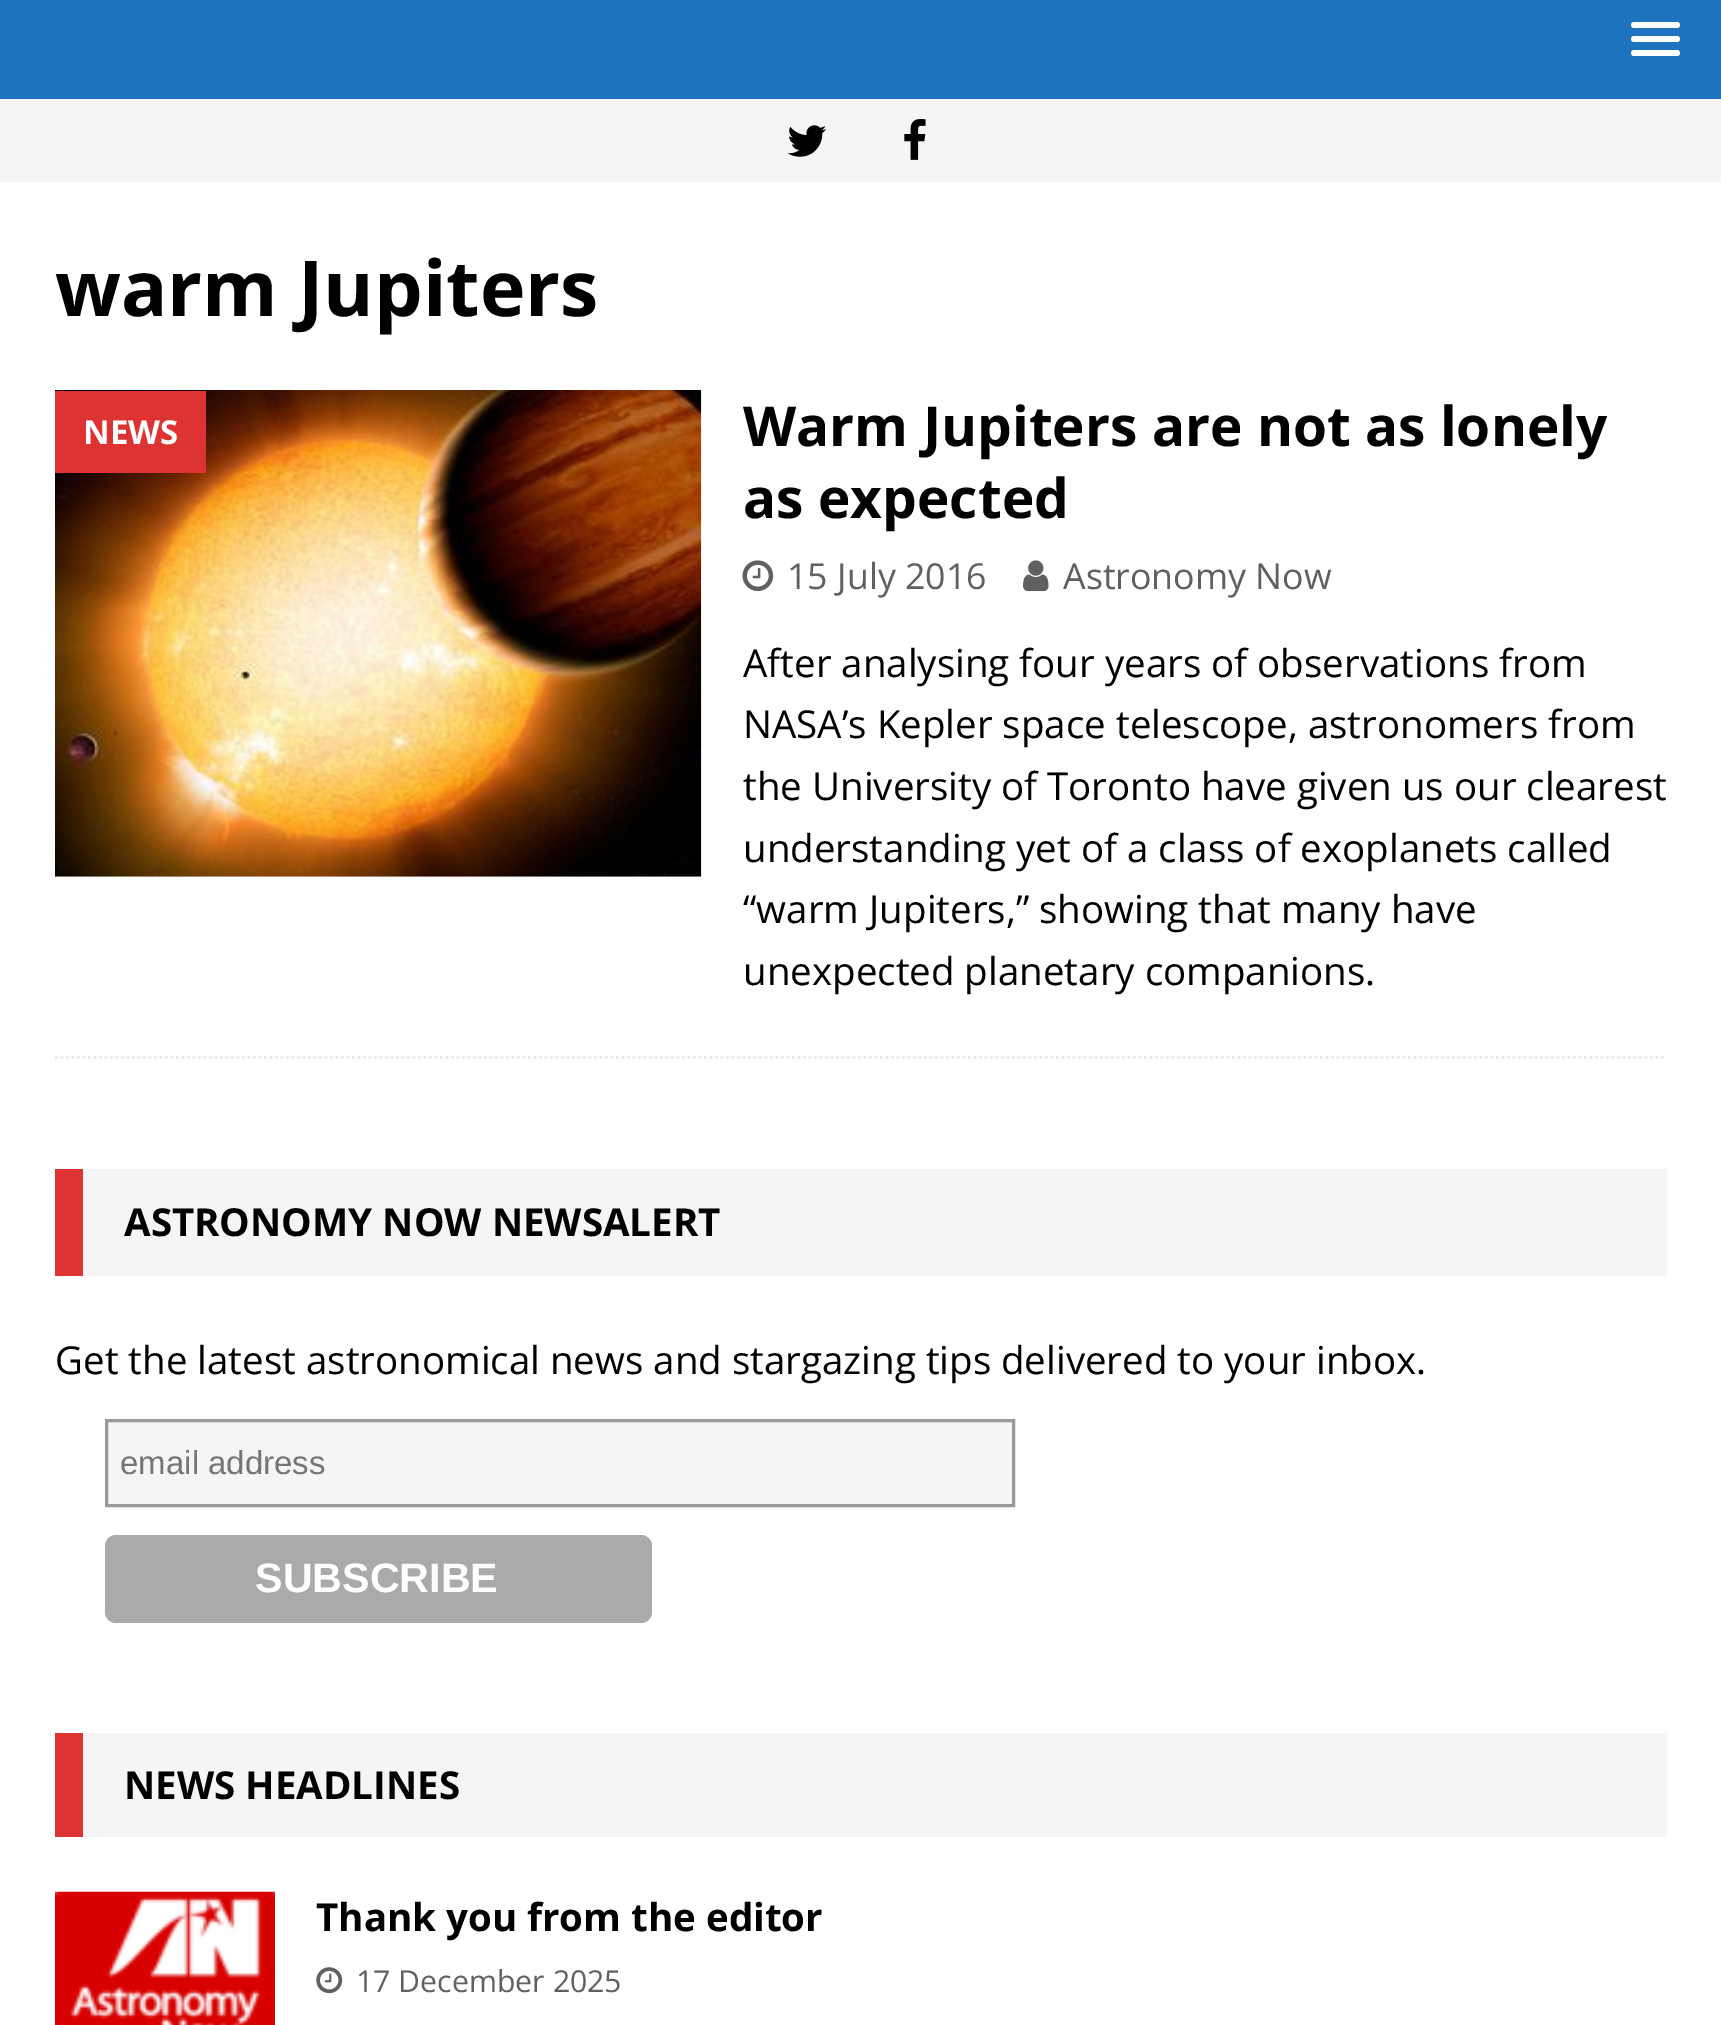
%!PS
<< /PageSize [1721 2025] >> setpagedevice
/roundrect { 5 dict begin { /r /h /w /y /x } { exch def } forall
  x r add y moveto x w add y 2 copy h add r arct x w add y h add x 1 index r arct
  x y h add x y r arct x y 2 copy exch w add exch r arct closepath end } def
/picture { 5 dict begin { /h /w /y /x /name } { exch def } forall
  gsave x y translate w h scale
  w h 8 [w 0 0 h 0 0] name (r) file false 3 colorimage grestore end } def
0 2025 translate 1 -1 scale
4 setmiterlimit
0.118 0.451 0.745 setrgbcolor
0 0 1721 2025 rectfill
1 setgray
1631 22 49 6 3 roundrect fill
1631 36 49 6 3 roundrect fill
1631 50 49 6 3 roundrect fill
0.961 setgray
0 99 1721 83 rectfill
(img1.rgb) 787 125 40 32 picture
(img2.rgb) 904 119 22 41 picture
1 setgray
0 182 1721 1843 rectfill
/OpenSans-Bold [77 0 0 -77 0 0] selectfont
0 setgray
55 316 moveto (warm Jupiters) show
0.922 setgray
2.8 setlinewidth
[2.75 2.75] 0 setdash
newpath 55 1057.5 moveto 1666.5 1057.5 lineto stroke
(img3.rgb) 55 390 647 487 picture
0.867 0.2 0.2 setrgbcolor
55 391 151 82 rectfill
/OpenSans-Bold [33 0 0 -33 0 0] selectfont
1 setgray
83 444 moveto (NEWS) show
/OpenSans-Bold [55 0 0 -55 0 0] selectfont
0 setgray
743 446 moveto (Warm Jupiters are not as lonely) show
743 518 moveto (as expected) show
(img4.rgb) 742 560 32 32 picture
/OpenSans-Regular [35.75 0 0 -35.75 0 0] selectfont
0.376 setgray
787 589 moveto (15 July 2016) show
(img5.rgb) 1023 560 26 32 picture
1063 589 moveto (Astronomy Now) show
/OpenSans-Regular [38.5 0 0 -38.5 0 0] selectfont
0 setgray
743 677 moveto (After analysing four years of observations from) show
743 738 moveto (NASA’s Kepler space telescope, astronomers from) show
743 800 moveto (the University of Toronto have given us our clearest) show
743 862 moveto (understanding yet of a class of exoplanets called) show
743 923 moveto (“warm Jupiters,” showing that many have) show
743 985 moveto (unexpected planetary companions.) show
0.961 setgray
83 1169 1584 107 rectfill
0.867 0.2 0.2 setrgbcolor
55 1169 28 107 rectfill
/OpenSans-Bold [38.5 0 0 -38.5 0 0] selectfont
0 setgray
124 1236 moveto (ASTRONOMY NOW NEWSALERT) show
/OpenSans-Regular [38.5 0 0 -38.5 0 0] selectfont
55 1374 moveto (Get the latest astronomical news and stargazing tips delivered to your inbox.) show
0.961 setgray
newpath 106.5 1420.5 moveto 1013.5 1420.5 lineto 1013.5 1505.5 lineto 106.5 1505.5 lineto closepath gsave fill grestore
0.6 setgray
3 setlinewidth
[] 0 setdash
stroke
/LiberationSans-Regular [33 0 0 -33 0 0] selectfont
0.459 setgray
120 1474 moveto (email address) show
0.667 setgray
105 1535 547 88 11 roundrect fill
/LiberationSans-Bold [41.25 0 0 -41.25 0 0] selectfont
1 setgray
255 1592 moveto (SUBSCRIBE) show
0.961 setgray
83 1733 1584 104 rectfill
0.867 0.2 0.2 setrgbcolor
55 1733 28 104 rectfill
/OpenSans-Bold [38.5 0 0 -38.5 0 0] selectfont
0 setgray
124 1799 moveto (NEWS HEADLINES) show
(img6.rgb) 55 1891 220 134 picture
316 1931 moveto (Thank you from the editor) show
(img7.rgb) 316 1967 27 27 picture
/OpenSans-Regular [30.25 0 0 -30.25 0 0] selectfont
0.376 setgray
356 1992 moveto (17 December 2025) show
showpage
